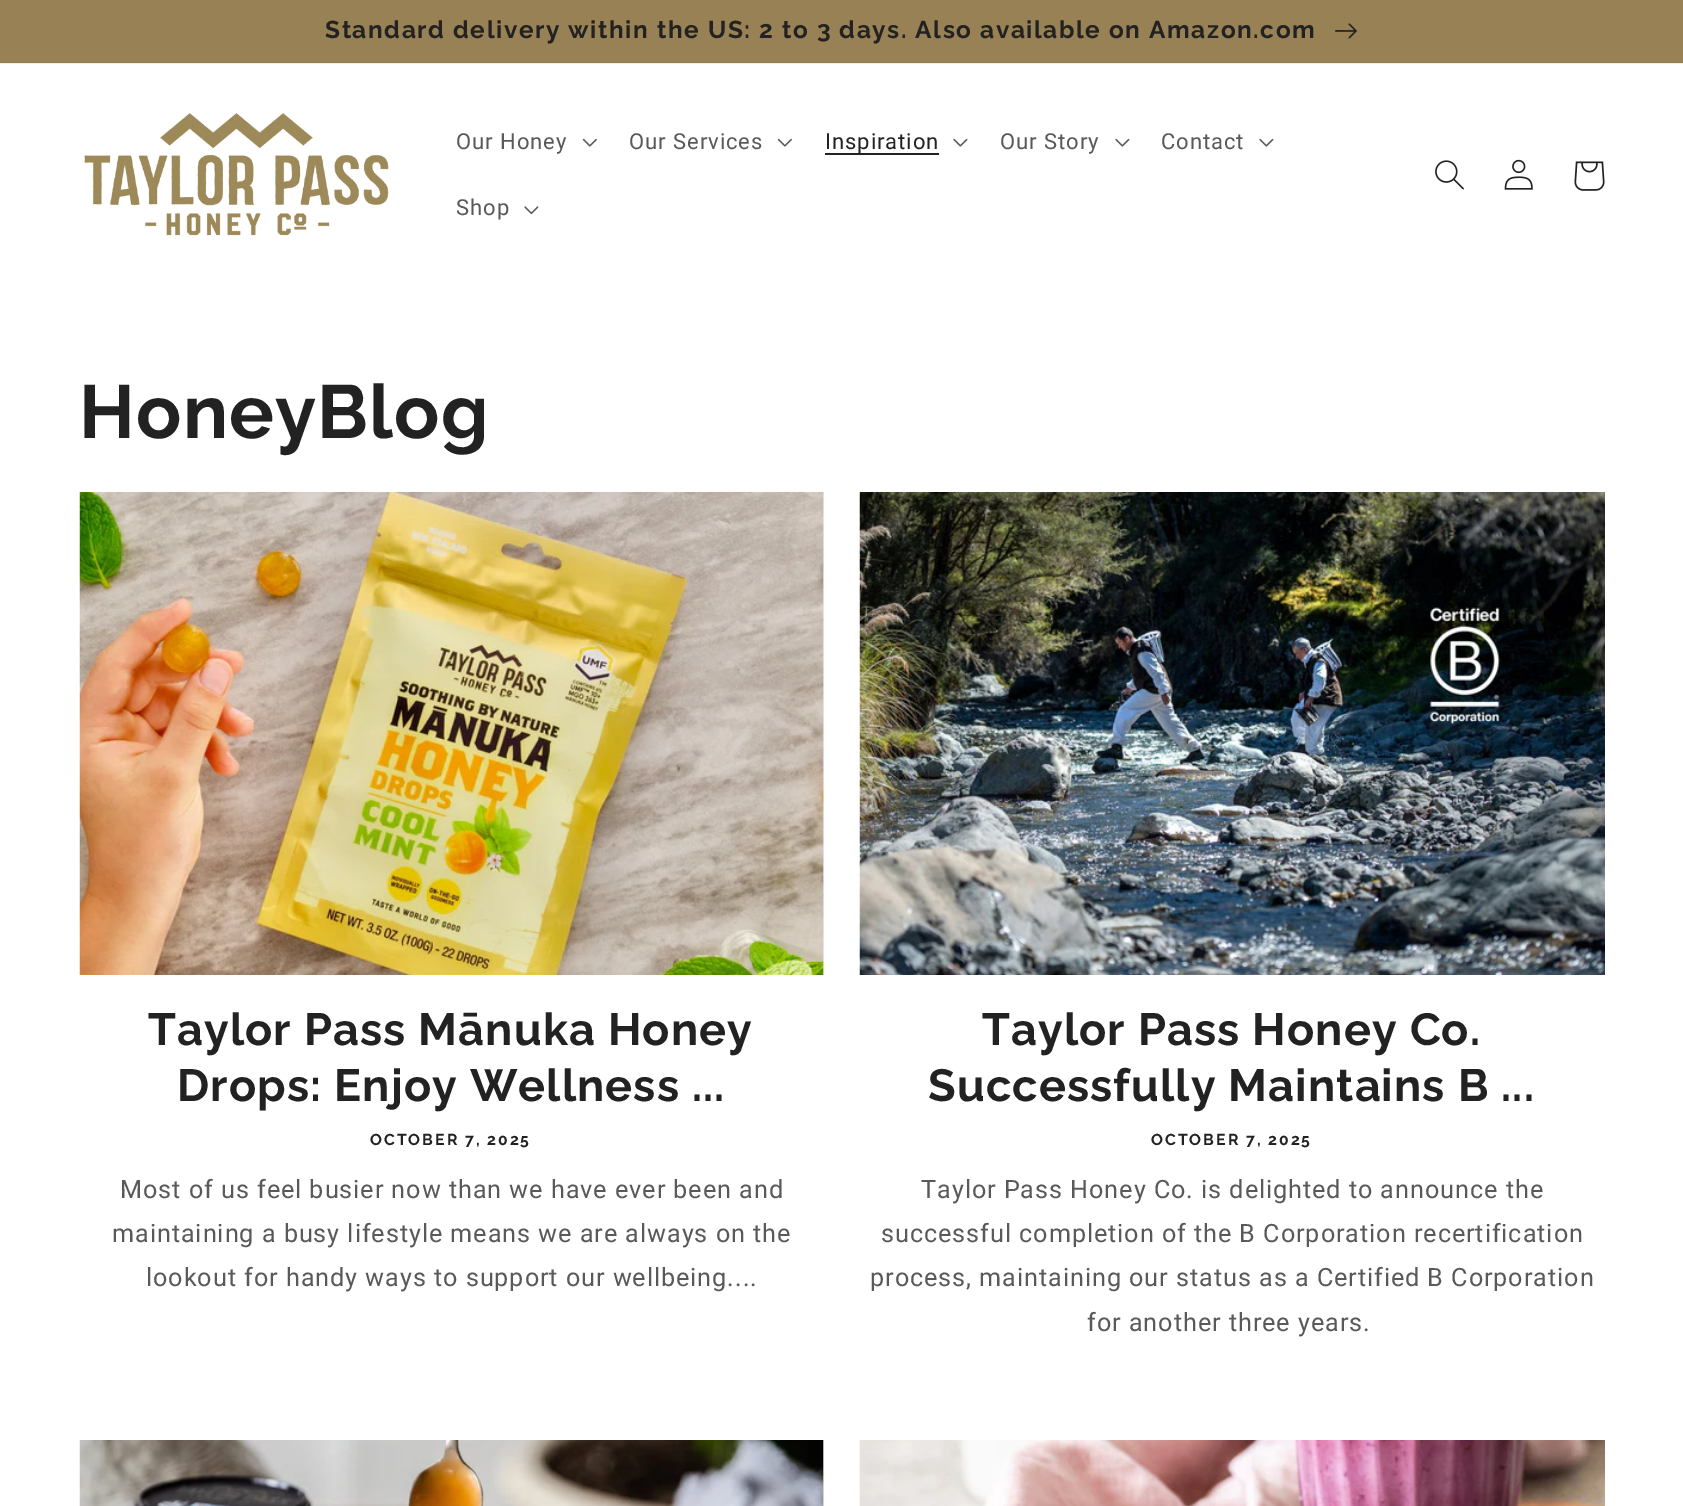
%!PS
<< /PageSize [1683 1506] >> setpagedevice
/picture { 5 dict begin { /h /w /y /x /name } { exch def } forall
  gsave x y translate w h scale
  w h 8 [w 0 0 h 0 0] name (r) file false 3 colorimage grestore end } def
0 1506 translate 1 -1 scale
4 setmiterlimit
1 setgray
0 0 1683 1506 rectfill
0.929 setgray
0 63 1683 1 rectfill
0.58 0.498 0.329 setrgbcolor
0 62 1683 1 rectfill
0.592 0.506 0.333 setrgbcolor
0 0 1683 62 rectfill
/Raleway-Bold [24.4 0 0 -24.4 0 0] selectfont
0.133 setgray
325 38 moveto 1.58 0 (Standard delivery within the US: 2 to 3 days. Also available on Amazon.com) ashow
(img1.rgb) 1335 23 22 16 picture
(img2.rgb) 84 113 305 123 picture
/Roboto-Regular [22 0 0 -22 0 0] selectfont
0.349 setgray
456 149 moveto 0.95 0 (Our Honey) ashow
(img3.rgb) 582 138 15 9 picture
629 149 moveto 0.95 0 (Our Services) ashow
(img3.rgb) 777 138 15 9 picture
0.133 setgray
825 153 114 2 rectfill
825 149 moveto 0.95 0 (Inspiration) ashow
(img4.rgb) 953 138 15 9 picture
0.349 setgray
1000 149 moveto 0.95 0 (Our Story) ashow
(img4.rgb) 1115 138 15 9 picture
1161 149 moveto 0.95 0 (Contact) ashow
(img4.rgb) 1259 138 15 9 picture
456 215 moveto 0.95 0 (Shop) ashow
(img5.rgb) 524 206 15 9 picture
(img6.rgb) 1435 160 29 30 picture
(img7.rgb) 1504 159 29 31 picture
(img8.rgb) 1574 161 31 30 picture
/Raleway-Bold [75 0 0 -75 0 0] selectfont
0.133 setgray
79 438 moveto 1.1 0 (HoneyBlog) ashow
0.918 setgray
823 492 1 483 rectfill
(img9.rgb) 79 492 745 483 picture
/Raleway-Bold [45 0 0 -45 0 0] selectfont
0.133 setgray
148 1045 moveto 1.1 0 (Taylor Pass Mānuka Honey) ashow
177 1101 moveto 1.1 0 (Drops: Enjoy Wellness ...) ashow
/Raleway-Bold [15.75 0 0 -15.75 0 0] selectfont
370 1145 moveto 2 0 (OCTOBER 7, 2025) ashow
/Roboto-Regular [25.2 0 0 -25.2 0 0] selectfont
0.349 setgray
120 1198 moveto 0.95 0 (Most of us feel busier now than we have ever been and) ashow
112 1242 moveto 0.95 0 (maintaining a busy lifestyle means we are always on the) ashow
146 1286 moveto 0.95 0 (lookout for handy ways to support our wellbeing....) ashow
(img10.rgb) 859 492 746 483 picture
/Raleway-Bold [45 0 0 -45 0 0] selectfont
0.133 setgray
982 1045 moveto 1.1 0 (Taylor Pass Honey Co.) ashow
928 1101 moveto 1.1 0 (Successfully Maintains B ...) ashow
/Raleway-Bold [15.75 0 0 -15.75 0 0] selectfont
1151 1145 moveto 2 0 (OCTOBER 7, 2025) ashow
/Roboto-Regular [25.2 0 0 -25.2 0 0] selectfont
0.349 setgray
921 1198 moveto 0.95 0 (Taylor Pass Honey Co. is delighted to announce the) ashow
881 1242 moveto 0.95 0 (successful completion of the B Corporation recertification) ashow
870 1286 moveto 0.95 0 (process, maintaining our status as a Certified B Corporation) ashow
1087 1331 moveto 0.95 0 (for another three years.) ashow
0.914 setgray
823 1440 1 66 rectfill
(img11.rgb) 79 1440 745 66 picture
(img12.rgb) 859 1440 746 66 picture
showpage
